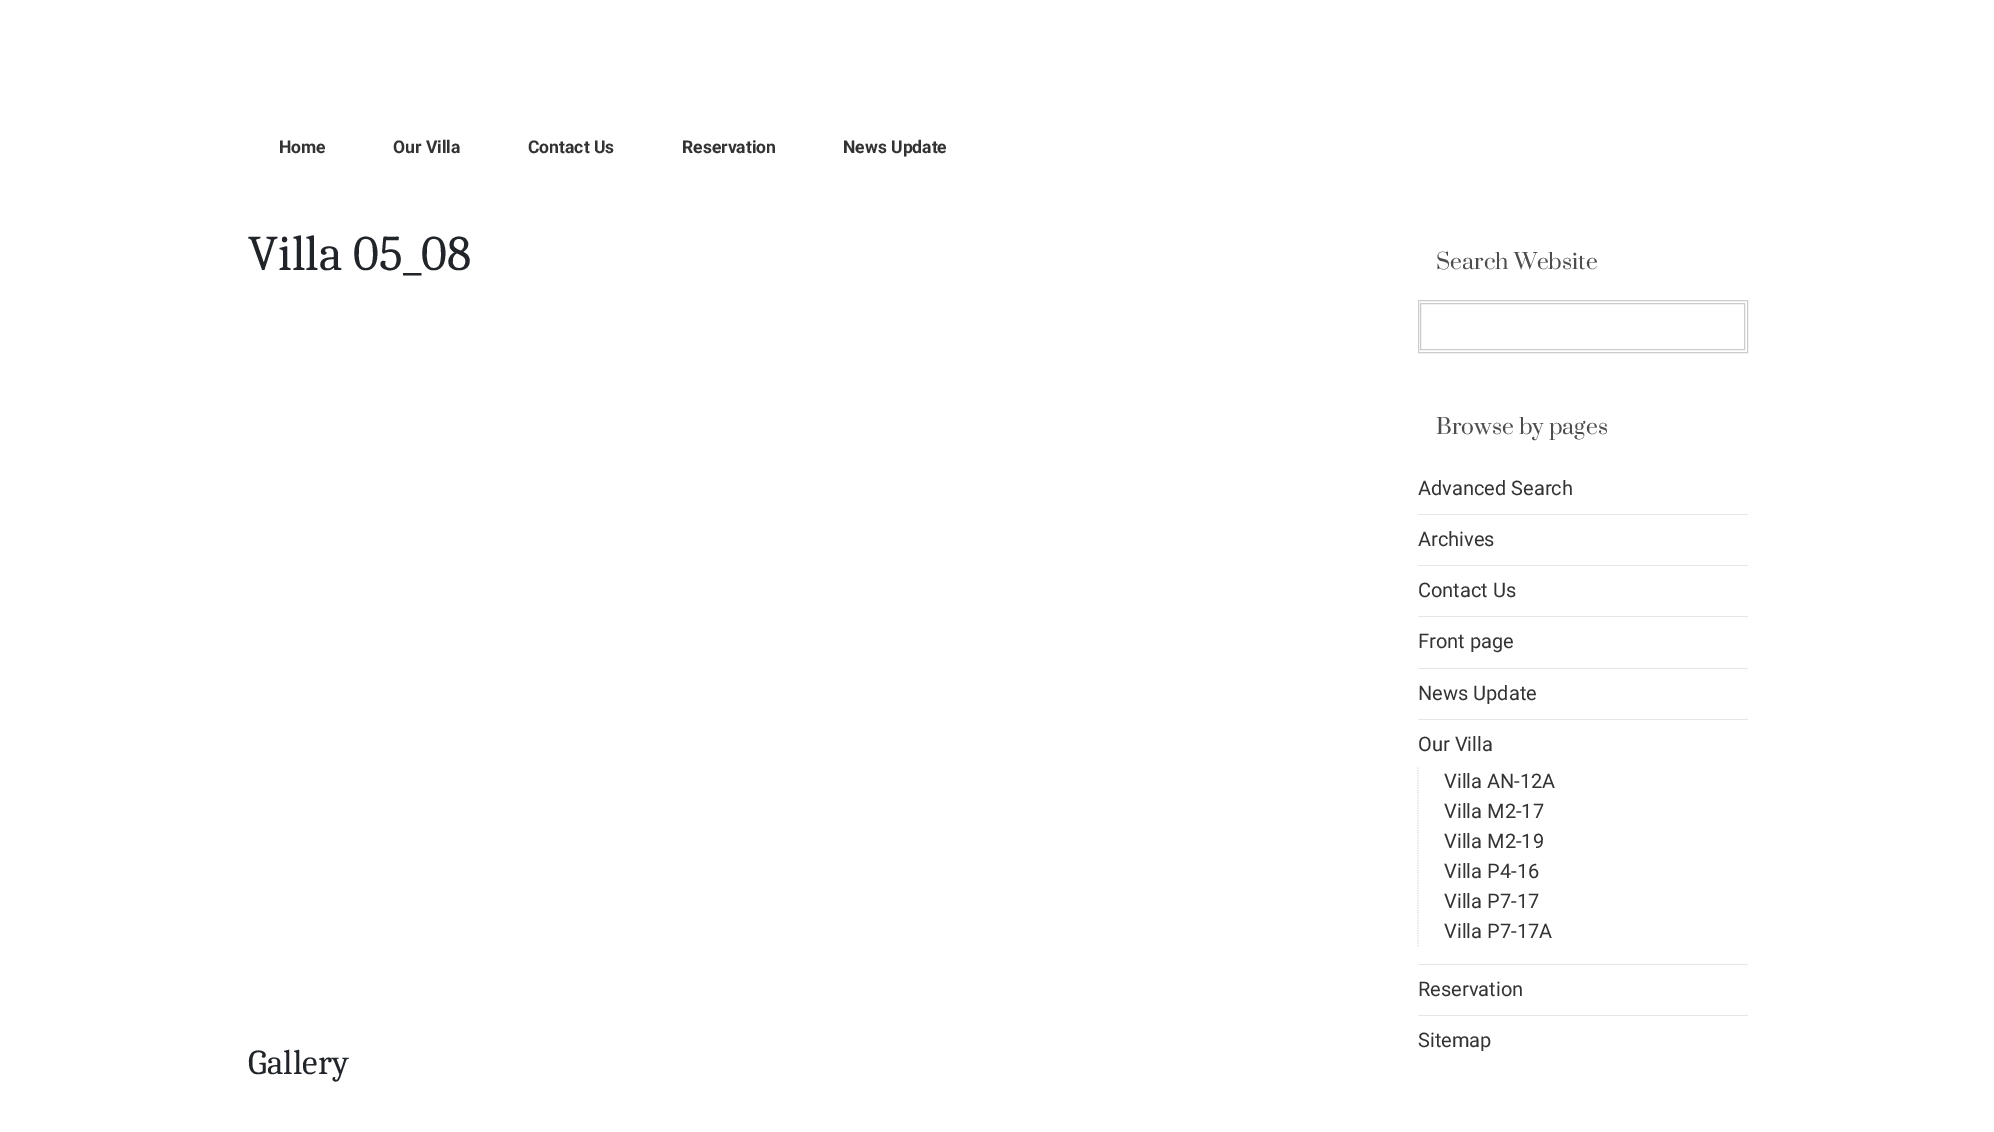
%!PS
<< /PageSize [1994 1132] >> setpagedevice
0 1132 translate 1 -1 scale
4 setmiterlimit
1 setgray
0 0 1994 1132 rectfill
/Roboto-Bold [17.5 0 0 -17.5 0 0] selectfont
0.2 setgray
279 153 moveto (Home) show
393 153 moveto (Our Villa) show
528 153 moveto (Contact Us) show
682 153 moveto (Reservation) show
843 153 moveto (News Update) show
/Caladea-Regular [50 0 0 -50 0 0] selectfont
0.129 0.145 0.161 setrgbcolor
248 270 moveto (Villa 05_08) show
/Caladea-Regular [35 0 0 -35 0 0] selectfont
248 1074 moveto (Gallery) show
/Prata-Regular [21.25 0 0 -21.25 0 0] selectfont
0.302 setgray
1436 269 moveto (Search Website) show
0.8 setgray
1418.5 300.5 329 52 rectstroke
1420.5 303.5 324 46 rectstroke
0.302 setgray
1436 434 moveto (Browse by pages) show
0.902 setgray
1418 514 330 1 rectfill
/Roboto-Regular [20 0 0 -20 0 0] selectfont
0.2 setgray
1418 495 moveto (Advanced Search) show
0.902 setgray
1418 565 330 1 rectfill
0.2 setgray
1418 546 moveto (Archives) show
0.902 setgray
1418 616 330 1 rectfill
0.2 setgray
1418 597 moveto (Contact Us) show
0.902 setgray
1418 668 330 1 rectfill
0.2 setgray
1418 648 moveto (Front page) show
0.902 setgray
1418 719 330 1 rectfill
0.2 setgray
1418 700 moveto (News Update) show
0.902 setgray
1418 964 330 1 rectfill
0.2 setgray
1418 751 moveto (Our Villa) show
0.867 setgray
1.2 setlinewidth
[1.25 1.25] 0 setdash
newpath 1418 767.5 moveto 1418 947.5 lineto stroke
0.2 setgray
1444 788 moveto (Villa AN-12A) show
1444 818 moveto (Villa M2-17) show
1444 848 moveto (Villa M2-19) show
1444 878 moveto (Villa P4-16) show
1444 908 moveto (Villa P7-17) show
1444 938 moveto (Villa P7-17A) show
0.902 setgray
1418 1015 330 1 rectfill
0.2 setgray
1418 996 moveto (Reservation) show
1418 1047 moveto (Sitemap) show
showpage
